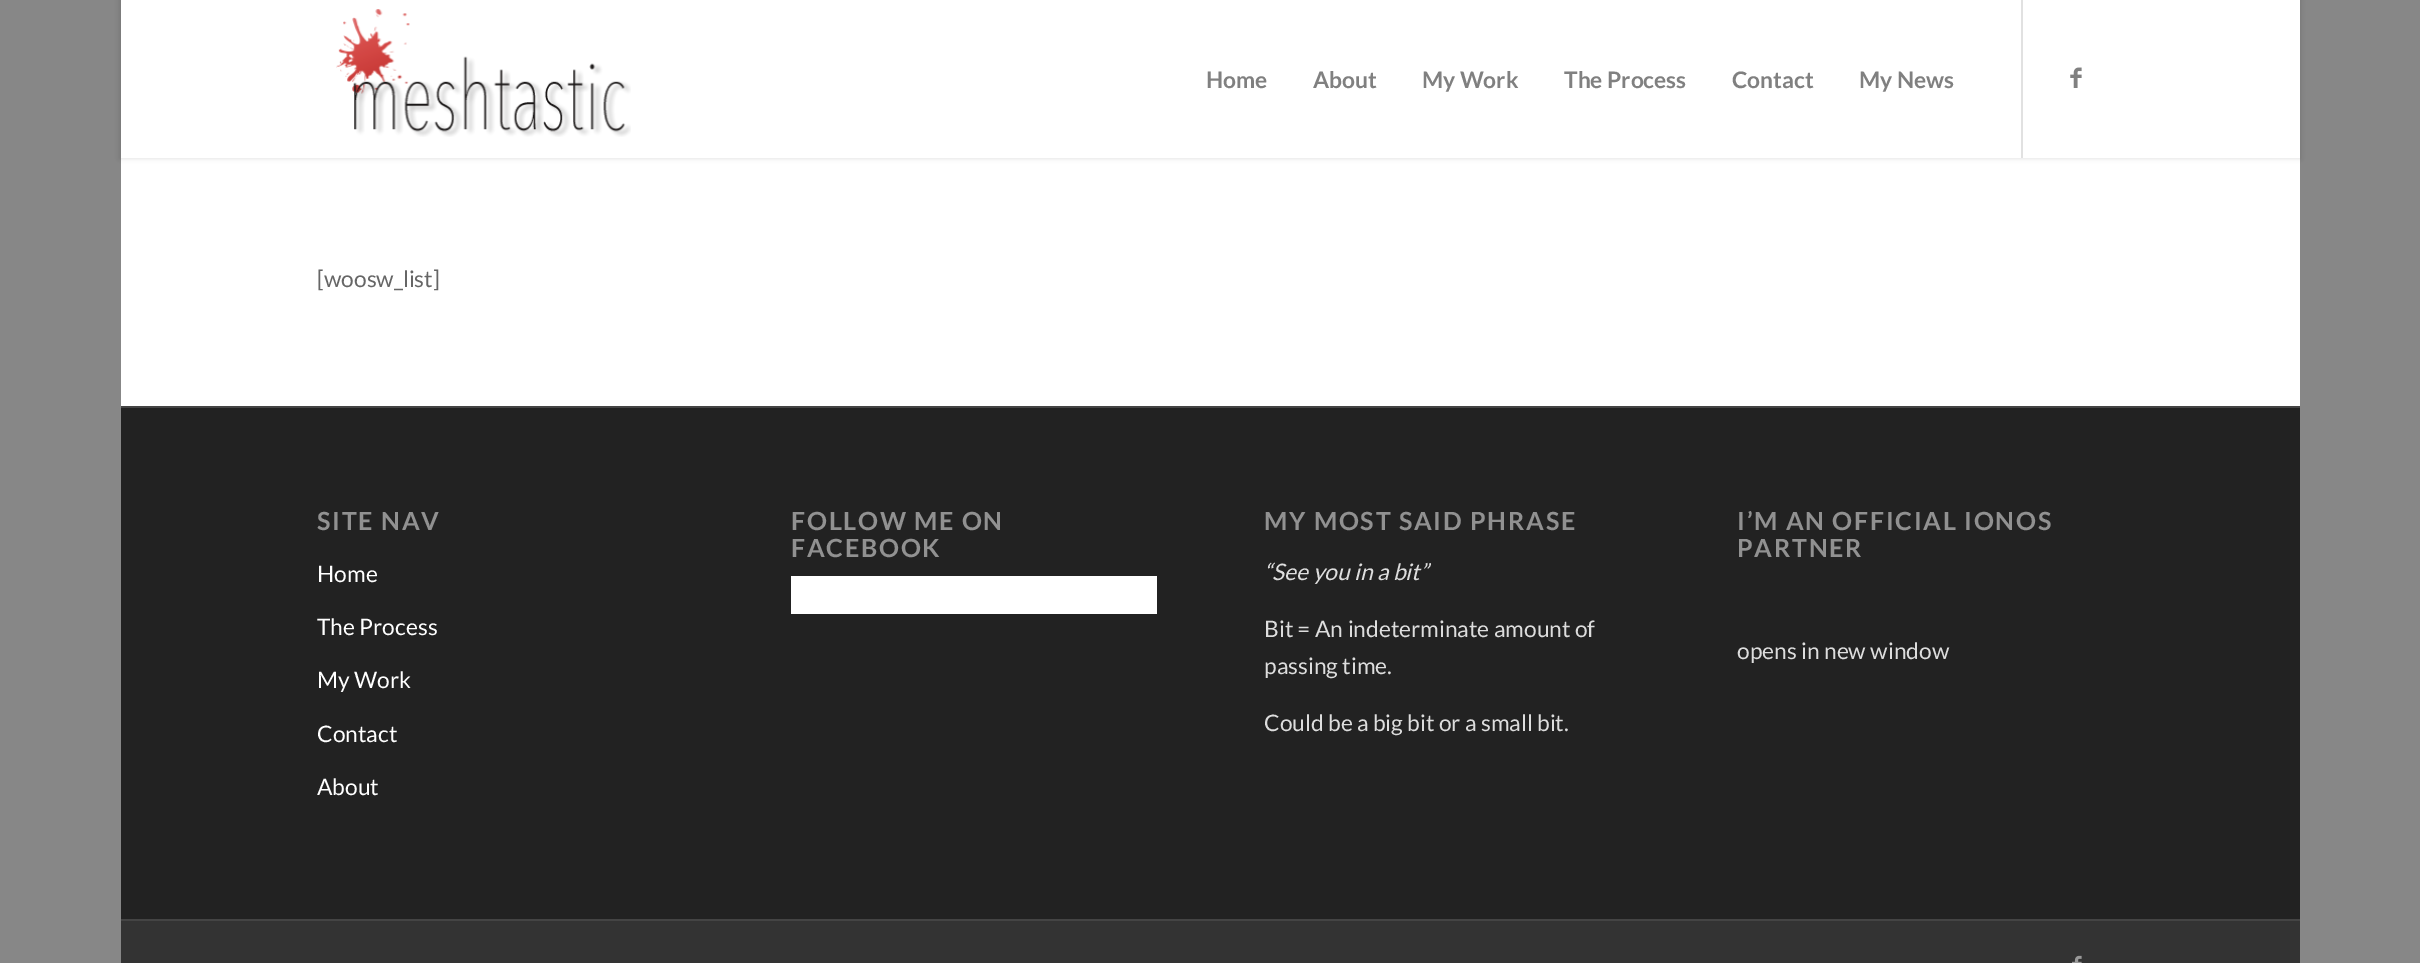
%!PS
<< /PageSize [2420 963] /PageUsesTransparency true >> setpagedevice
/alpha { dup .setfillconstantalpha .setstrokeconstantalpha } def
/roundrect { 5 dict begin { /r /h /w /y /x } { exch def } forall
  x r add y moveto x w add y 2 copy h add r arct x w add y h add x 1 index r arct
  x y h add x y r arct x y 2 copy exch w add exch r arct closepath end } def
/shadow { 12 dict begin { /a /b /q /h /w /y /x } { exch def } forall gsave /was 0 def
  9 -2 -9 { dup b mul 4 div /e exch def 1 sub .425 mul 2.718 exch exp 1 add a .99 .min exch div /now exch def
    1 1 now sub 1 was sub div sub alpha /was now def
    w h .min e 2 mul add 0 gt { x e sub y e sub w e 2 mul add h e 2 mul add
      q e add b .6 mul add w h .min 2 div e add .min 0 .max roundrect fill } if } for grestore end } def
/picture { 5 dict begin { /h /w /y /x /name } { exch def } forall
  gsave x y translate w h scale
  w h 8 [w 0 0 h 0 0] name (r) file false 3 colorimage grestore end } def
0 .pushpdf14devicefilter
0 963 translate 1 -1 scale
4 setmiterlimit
0.529 setgray
0 0 2420 963 rectfill
1 setgray
121 158 2179 248 rectfill
0 setgray
119 -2 2182 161 0 2 0.1 shadow
1 setgray
121 0 2179 158 rectfill
(img1.rgb) 336 9 295 128 picture
0.882 setgray
2021 0 2 158 rectfill
/Lato-Bold [22.75 0 0 -22.75 0 0] selectfont
0.502 setgray
1206 88 moveto (Home) show
1313 88 moveto (About) show
1422 88 moveto (My Work) show
1564 88 moveto (The Process) show
1732 88 moveto (Contact) show
1859 88 moveto (My News) show
(img2.rgb) 2070 67 12 21 picture
/Lato-Regular [22.75 0 0 -22.75 0 0] selectfont
0.4 setgray
317 287 moveto ([woosw_list]) show
0.133 setgray
121 408 2179 511 rectfill
0.267 setgray
121 406 2179 2 rectfill
/Lato-Bold [25 0 0 -25 0 0] selectfont
0.569 setgray
317 530 moveto 1.75 0 (SITE NAV) ashow
/Lato-Regular [22.75 0 0 -22.75 0 0] selectfont
1 setgray
317 582 moveto (Home) show
317 635 moveto (The Process) show
317 688 moveto (My Work) show
317 742 moveto (Contact) show
317 795 moveto (About) show
/Lato-Bold [25 0 0 -25 0 0] selectfont
0.569 setgray
791 530 moveto 1.75 0 (FOLLOW ME ON) ashow
791 557 moveto 1.75 0 (FACEBOOK) ashow
1 setgray
791 576 366 38 rectfill
0.569 setgray
1264 530 moveto 1.75 0 (MY MOST SAID PHRASE) ashow
/Lato-Italic [22.75 0 0 -22.75 0 0] selectfont
0.867 setgray
1264 580 moveto (“See you in a bit”) show
/Lato-Regular [22.75 0 0 -22.75 0 0] selectfont
1264 637 moveto (Bit = An indeterminate amount of) show
1264 674 moveto (passing time.) show
1264 731 moveto (Could be a big bit or a small bit.) show
/Lato-Bold [25 0 0 -25 0 0] selectfont
0.569 setgray
1737 530 moveto 1.75 0 (I’M AN OFFICIAL IONOS) ashow
1737 557 moveto 1.75 0 (PARTNER) ashow
/Lato-Regular [22.75 0 0 -22.75 0 0] selectfont
0.867 setgray
1737 659 moveto (opens in new window) show
0.2 setgray
121 921 2179 42 rectfill
0.267 setgray
121 919 2179 2 rectfill
(img3.rgb) 2072 955 10 8 picture
.poppdf14devicefilter showpage
